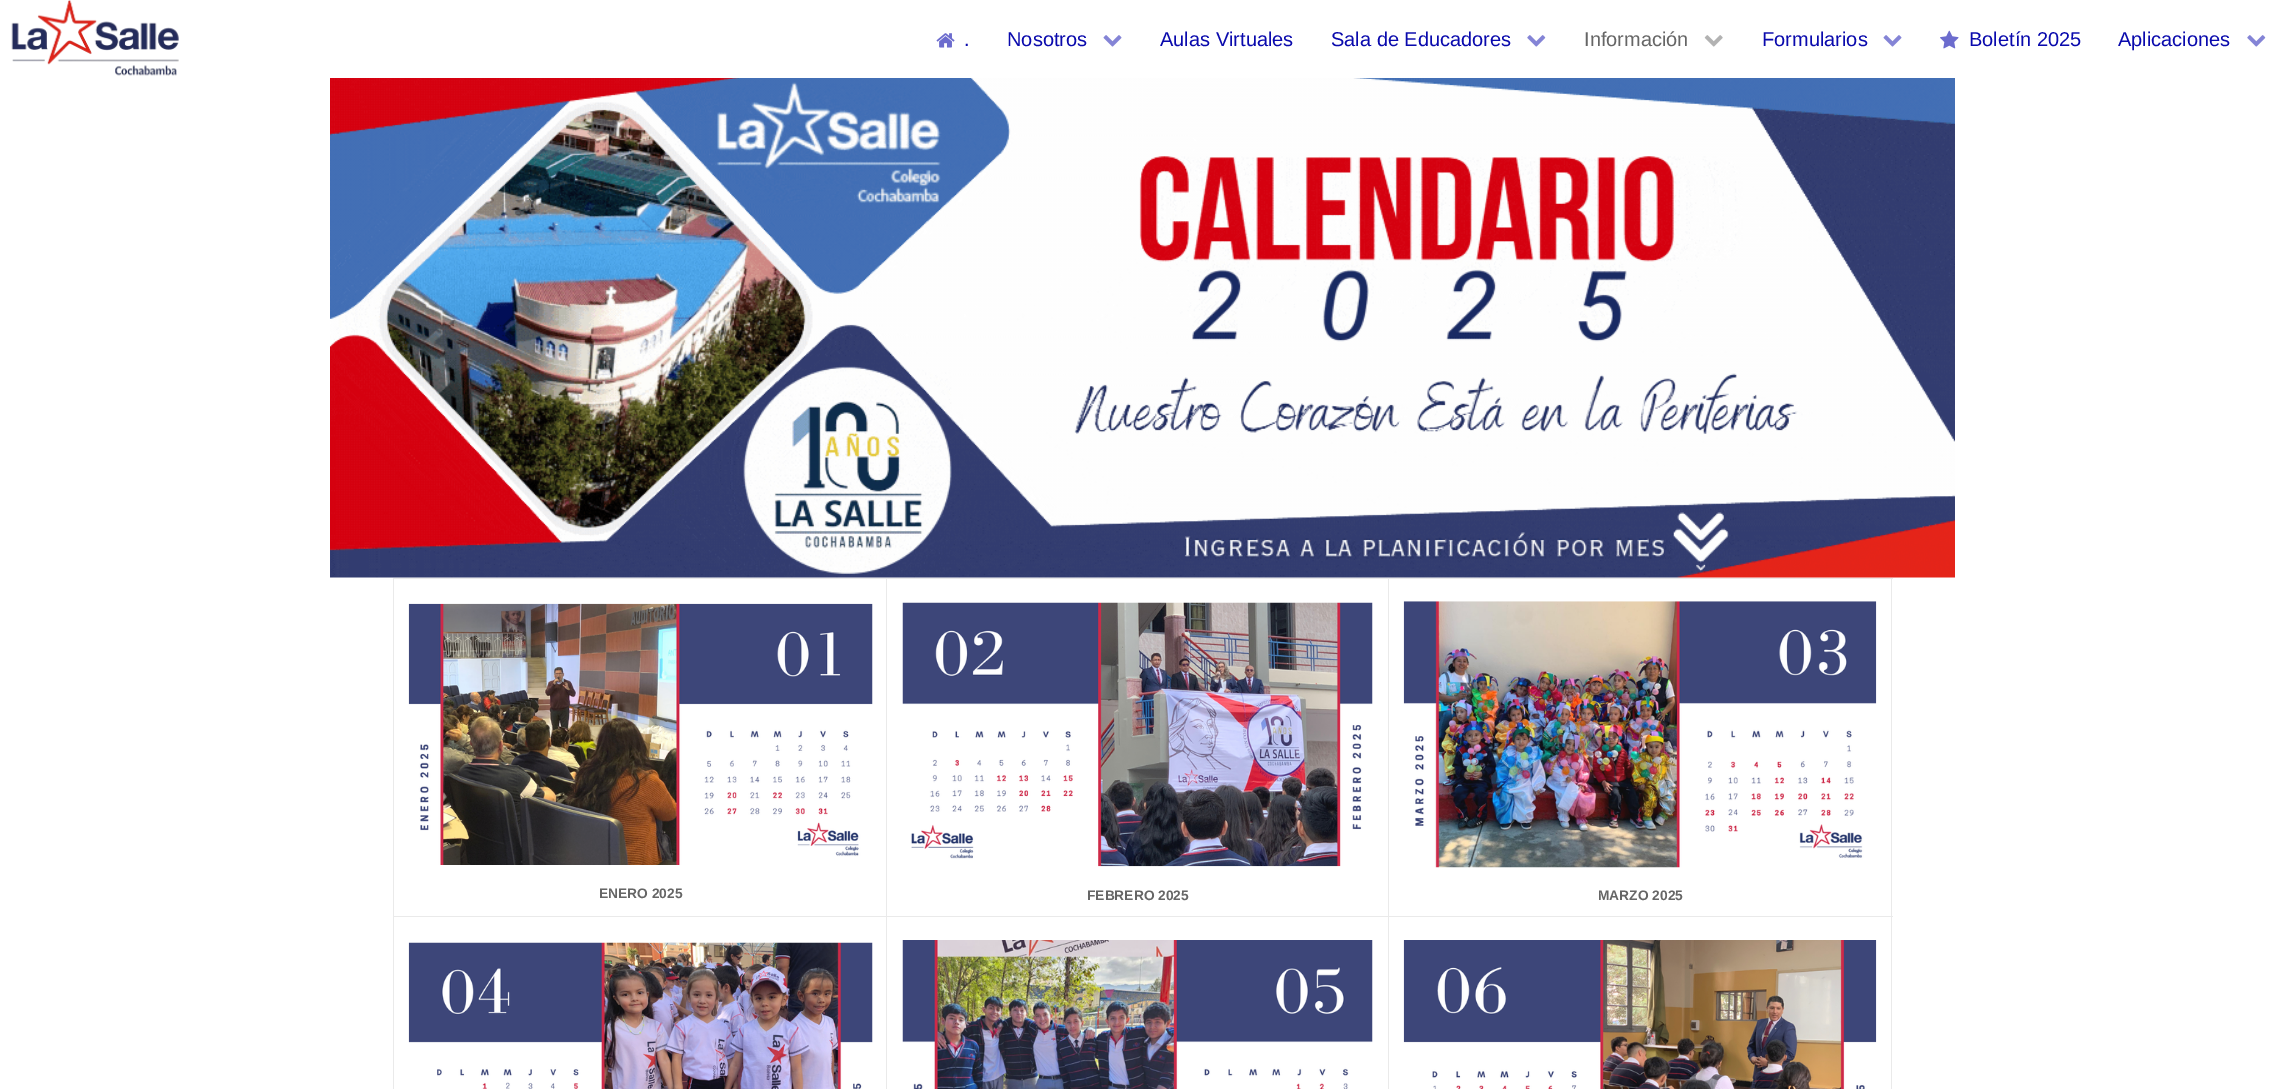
%!PS
<< /PageSize [2285 1089] >> setpagedevice
/picture { 5 dict begin { /h /w /y /x /name } { exch def } forall
  gsave x y translate w h scale
  w h 8 [w 0 0 h 0 0] name (r) file false 3 colorimage grestore end } def
0 1089 translate 1 -1 scale
4 setmiterlimit
1 setgray
0 0 2285 1089 rectfill
(img1.rgb) 11 0 168 76 picture
(img2.rgb) 936 33 19 15 picture
/LiberationSans-Regular [20 0 0 -20 0 0] selectfont
0.039 0.039 0.678 setrgbcolor
964 46 moveto (.) show
1007 46 moveto (Nosotros) show
(img3.rgb) 1103 35 19 12 picture
1160 46 moveto (Aulas Virtuales) show
1331 46 moveto (Sala de Educadores) show
(img4.rgb) 1527 35 19 12 picture
0.4 setgray
1584 46 moveto (Información) show
(img5.rgb) 1704 35 19 12 picture
0.039 0.039 0.678 setrgbcolor
1762 46 moveto (Formularios) show
(img3.rgb) 1883 35 19 12 picture
(img6.rgb) 1940 30 19 19 picture
1969 46 moveto (Boletín 2025) show
2118 46 moveto (Aplicaciones) show
(img4.rgb) 2247 35 19 12 picture
(img7.rgb) 330 78 1625 500 picture
0.918 setgray
393 578 1500 1 rectfill
1891 578 1 511 rectfill
393 578 1 511 rectfill
(img8.rgb) 408 603 465 262 picture
/LiberationSans-Bold [13.75 0 0 -13.75 0 0] selectfont
0.4 setgray
599 898 moveto (ENERO 2025) show
0.918 setgray
1388 916 505 1 rectfill
1388 916 1 173 rectfill
886 916 503 1 rectfill
886 916 1 173 rectfill
393 916 495 1 rectfill
886 578 1 340 rectfill
(img9.rgb) 902 602 471 265 picture
0.4 setgray
1087 900 moveto (FEBRERO 2025) show
0.918 setgray
1388 578 1 340 rectfill
(img10.rgb) 1403 601 474 267 picture
0.4 setgray
1598 900 moveto (MARZO 2025) show
(img11.rgb) 408 942 465 147 picture
(img12.rgb) 902 940 471 149 picture
(img13.rgb) 1403 940 474 149 picture
showpage
